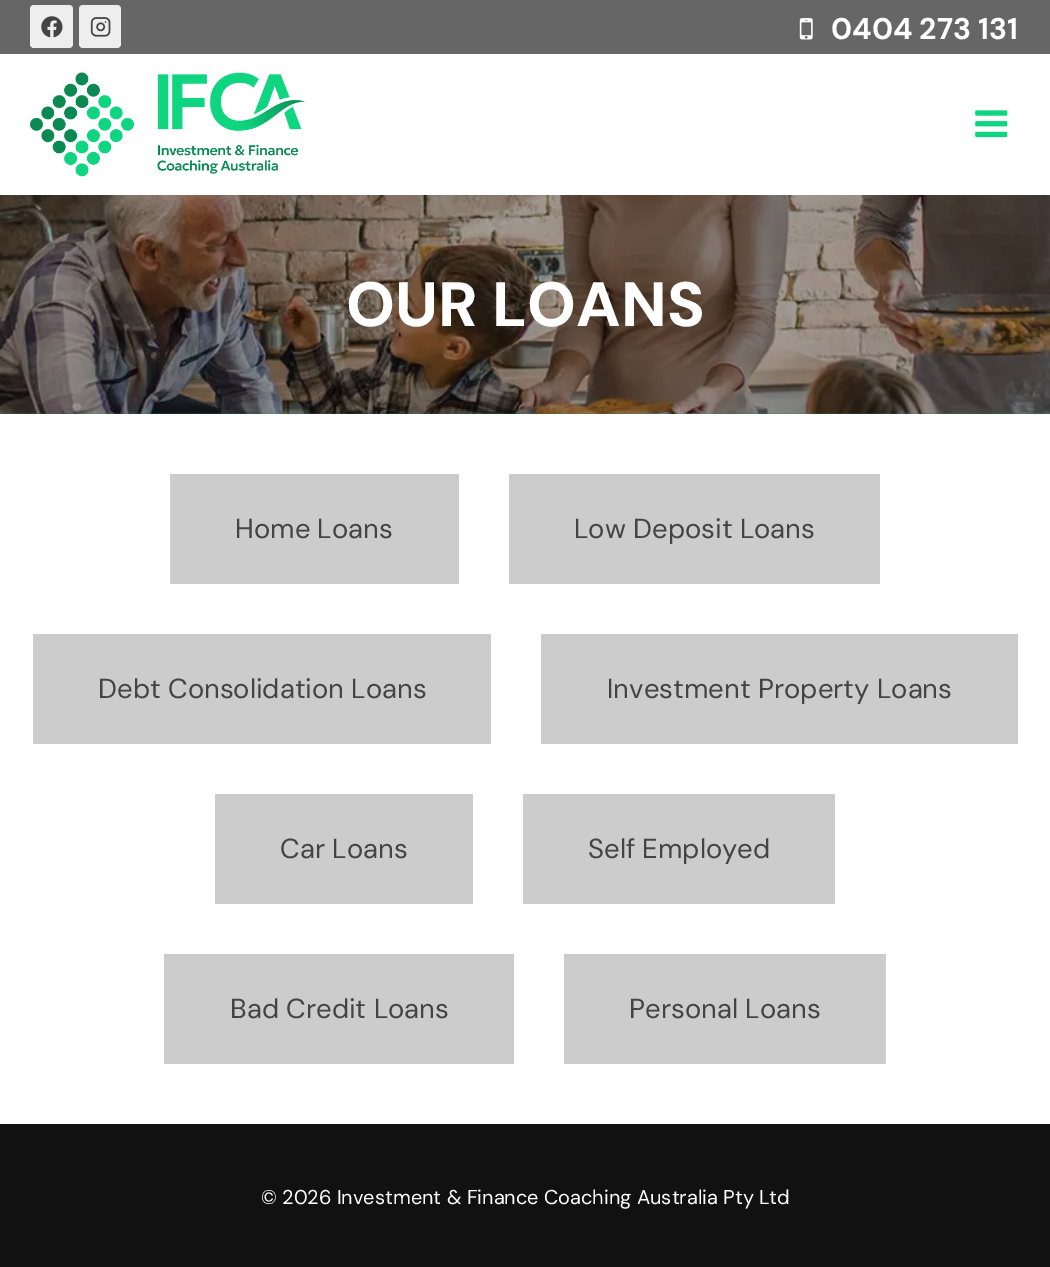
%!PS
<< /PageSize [1050 1267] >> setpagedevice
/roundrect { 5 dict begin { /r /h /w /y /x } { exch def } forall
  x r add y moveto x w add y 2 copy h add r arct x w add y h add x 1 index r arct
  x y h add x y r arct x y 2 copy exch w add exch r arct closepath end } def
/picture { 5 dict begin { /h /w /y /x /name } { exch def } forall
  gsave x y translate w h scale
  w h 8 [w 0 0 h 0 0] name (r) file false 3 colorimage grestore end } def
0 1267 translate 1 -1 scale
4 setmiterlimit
1 setgray
0 0 1050 1267 rectfill
0.4 setgray
0 0 1050 54 rectfill
0.933 setgray
30 5 43 43 4 roundrect fill
(img1.rgb) 41 16 22 22 picture
79 5 42 43 4 roundrect fill
(img2.rgb) 90 17 21 20 picture
(img3.rgb) 799 18 14 22 picture
/DMSans-Bold [30 0 0 -30 0 0] selectfont
1 setgray
831 39 moveto (0404 273 131) show
(img4.rgb) 30 72 275 105 picture
(img5.rgb) 975 110 33 28 picture
(img6.rgb) 0 195 1050 219 picture
/DMSans-ExtraBold [62.5 0 0 -62.5 0 0] selectfont
346 326 moveto (OUR LOANS) show
0.8 setgray
170 474 289 110 rectfill
/DMSans-Regular [27.5 0 0 -27.5 0 0] selectfont
0.267 setgray
235 538 moveto (Home Loans) show
0.8 setgray
509 474 371 110 rectfill
0.267 setgray
574 538 moveto (Low Deposit Loans) show
0.8 setgray
33 634 458 110 rectfill
0.267 setgray
98 698 moveto (Debt Consolidation Loans) show
0.8 setgray
541 634 477 110 rectfill
0.267 setgray
607 698 moveto (Investment Property Loans) show
0.8 setgray
215 794 258 110 rectfill
0.267 setgray
280 858 moveto (Car Loans) show
0.8 setgray
523 794 312 110 rectfill
0.267 setgray
588 858 moveto (Self Employed) show
0.8 setgray
164 954 350 110 rectfill
0.267 setgray
230 1018 moveto (Bad Credit Loans) show
0.8 setgray
564 954 322 110 rectfill
0.267 setgray
629 1018 moveto (Personal Loans) show
0.067 setgray
0 1124 1050 143 rectfill
/DMSans-Regular [20 0 0 -20 0 0] selectfont
1 setgray
261 1204 moveto (© 2026 Investment & Finance Coaching Australia Pty Ltd) show
showpage
